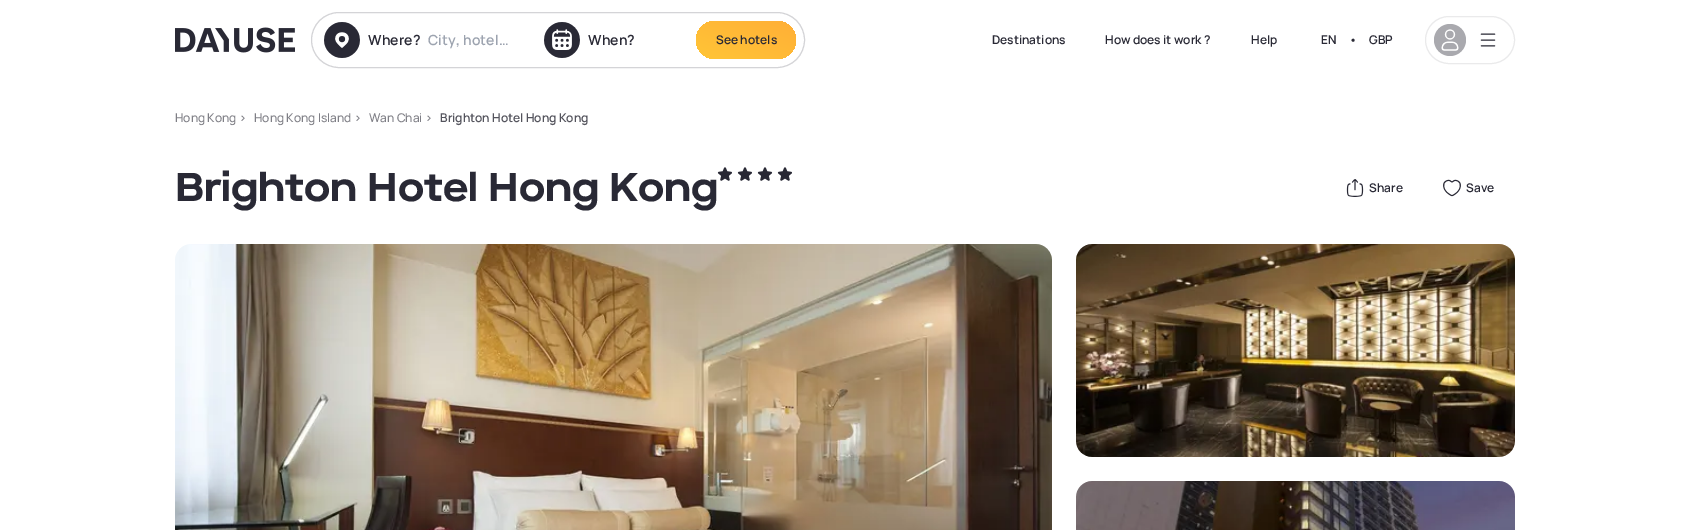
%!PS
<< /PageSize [1689 530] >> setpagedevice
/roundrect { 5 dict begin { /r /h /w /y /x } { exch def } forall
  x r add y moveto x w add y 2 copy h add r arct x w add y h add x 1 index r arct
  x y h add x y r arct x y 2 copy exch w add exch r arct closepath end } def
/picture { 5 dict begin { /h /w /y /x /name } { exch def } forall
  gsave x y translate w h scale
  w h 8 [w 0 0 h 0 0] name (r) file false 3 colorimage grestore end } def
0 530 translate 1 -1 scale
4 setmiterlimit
1 setgray
0 0 1689 530 rectfill
(img1.rgb) 175 27 120 26 picture
0.831 0.831 0.843 setrgbcolor
311.5 12.5 493 55 27.5 roundrect stroke
(img2.rgb) 324 22 36 36 picture
/Manrope-SemiBold [14 0 0 -14 0 0] selectfont
0.161 0.161 0.208 setrgbcolor
368 45 moveto 0.1 0 (Where?) ashow
0.612 0.639 0.686 setrgbcolor
428 45 moveto 0.1 0 (City, hotel…) ashow
(img3.rgb) 544 22 36 36 picture
0.161 0.161 0.208 setrgbcolor
588 45 moveto 0.1 0 (When?) ashow
gsave 696 21 100 38 19 roundrect clip newpath
<< /ShadingType 2 /ColorSpace /DeviceRGB /Coords [759 6.8 733 73] /Extend [true true] /Function << /FunctionType 2 /Domain [0 1] /C0 [1 0.686 0.212] /C1 [1 0.773 0.212] /N 1 >> >> shfill grestore
/Manrope-SemiBold [12 0 0 -12 0 0] selectfont
716 44 moveto (See hotels) show
992 44 moveto (Destinations) show
1105 44 moveto (How does it work ?) show
1251 44 moveto (Help) show
1321 44 moveto (EN) show
1349 44 moveto (•) show
1369 44 moveto (GBP) show
0.918 0.918 0.922 setrgbcolor
1425.5 16.5 89 47 23.5 roundrect stroke
0.663 0.663 0.682 setrgbcolor
newpath 1450 40 16 0 360 arc closepath fill
(img4.rgb) 1441 29 18 22 picture
(img5.rgb) 1480 33 16 14 picture
/Manrope-Medium [12 0 0 -12 0 0] selectfont
0.498 0.498 0.525 setrgbcolor
175 122 moveto (Hong Kong >) show
254 122 moveto (Hong Kong Island >) show
369 122 moveto (Wan Chai >) show
/Manrope-SemiBold [12 0 0 -12 0 0] selectfont
0.329 0.329 0.365 setrgbcolor
440 122 moveto (Brighton Hotel Hong Kong) show
/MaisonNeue-Bold [40 0 0 -40 0 0] selectfont
0.161 0.161 0.208 setrgbcolor
175 201 moveto (Brighton Hotel Hong Kong) show
(img6.rgb) 717 167 15 14 picture
(img6.rgb) 737 167 15 14 picture
(img7.rgb) 757 167 16 14 picture
(img6.rgb) 777 167 15 14 picture
(img8.rgb) 1346 179 18 18 picture
/Manrope-SemiBold [12 0 0 -12 0 0] selectfont
1369 192 moveto (Share) show
(img9.rgb) 1443 179 18 18 picture
1466 192 moveto (Save) show
(img10.rgb) 175 244 877 286 picture
(img11.rgb) 1076 244 439 213 picture
(img12.rgb) 1076 481 439 49 picture
showpage
